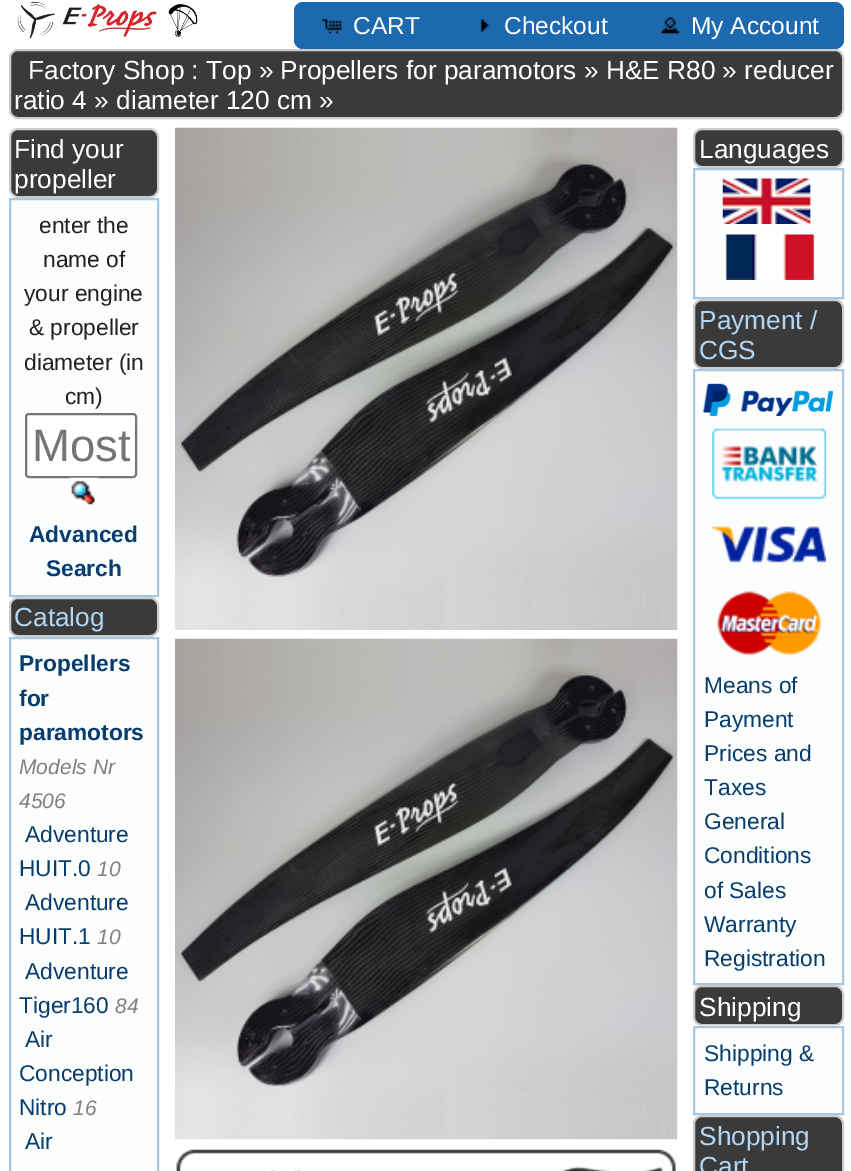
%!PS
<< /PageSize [851 1171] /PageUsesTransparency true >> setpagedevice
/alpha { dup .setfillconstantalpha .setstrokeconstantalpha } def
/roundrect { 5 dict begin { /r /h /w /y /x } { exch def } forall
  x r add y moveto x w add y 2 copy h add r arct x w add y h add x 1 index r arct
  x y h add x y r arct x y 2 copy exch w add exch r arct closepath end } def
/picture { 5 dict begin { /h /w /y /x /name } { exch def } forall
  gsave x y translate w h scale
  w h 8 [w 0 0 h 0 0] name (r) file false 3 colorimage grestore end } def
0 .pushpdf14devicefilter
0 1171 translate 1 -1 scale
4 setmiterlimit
1 setgray
0 0 851 1171 rectfill
(img1.rgb) 17 1 181 38 picture
0.114 0.412 0.686 setrgbcolor
newpath 303 2 moveto 445 2 lineto 445 49 lineto 303 49 lineto 298 49 294 45 294 40 curveto 294 11 lineto 294 6 298 2 303 2 curveto closepath fill
(img2.rgb) 321 18 21 16 picture
/LiberationSans-Regular [24.5 0 0 -24.5 0 0] selectfont
1 setgray
353 34 moveto (CART) show
0.114 0.412 0.686 setrgbcolor
445 2 187 47 rectfill
(img3.rgb) 480 18 9 14 picture
1 setgray
504 34 moveto (Checkout) show
0.114 0.412 0.686 setrgbcolor
newpath 632 2 moveto 835 2 lineto 840 2 844 6 844 11 curveto 844 40 lineto 844 45 840 49 835 49 curveto 632 49 lineto closepath fill
(img4.rgb) 661 16 19 18 picture
1 setgray
691 34 moveto (My Account) show
0.227 setgray
10 50 833 68 8 roundrect gsave fill grestore
0.8 setgray
2 setlinewidth
stroke
/LiberationSans-Regular [26.25 0 0 -26.25 0 0] selectfont
1 setgray
28 79 moveto (Factory Shop : Top » Propellers for paramotors » H&E R80 » reducer) show
14 109 moveto (ratio 4 » diameter 120 cm ») show
0.227 setgray
10 129 148 68 8 roundrect gsave fill grestore
0.8 setgray
stroke
1 setgray
14 158 moveto (Find your) show
14 188 moveto (propeller) show
0.988 0.992 0.992 setrgbcolor
newpath 10 199 moveto 158 199 lineto 158 596 lineto 10 596 lineto closepath gsave fill grestore
0.651 0.788 0.886 setrgbcolor
stroke
/LiberationSans-Regular [22.75 0 0 -22.75 0 0] selectfont
0.133 setgray
39 233 moveto (enter the) show
43 267 moveto (name of) show
24 301 moveto (your engine) show
29 335 moveto (& propeller) show
24 370 moveto (diameter \(in) show
65 404 moveto (cm\)) show
1 setgray
26 414 110 63 3 roundrect gsave fill grestore
0.463 setgray
stroke
gsave
32 418 98 55 rectclip
/LiberationSans-Regular [45.5 0 0 -45.5 0 0] selectfont
0.459 setgray
32 461 moveto (Most) show
grestore
(img5.rgb) 70 477 28 28 picture
/LiberationSans-Bold [22.75 0 0 -22.75 0 0] selectfont
0.024 0.239 0.427 setrgbcolor
29 542 moveto (Advanced) show
46 576 moveto (Search) show
0.227 setgray
10 598 148 38 8 roundrect gsave fill grestore
0.8 setgray
stroke
/LiberationSans-Regular [26.25 0 0 -26.25 0 0] selectfont
0.698 0.839 0.961 setrgbcolor
14 626 moveto (Catalog) show
0.988 0.992 0.992 setrgbcolor
newpath 10 638 moveto 158 638 lineto 158 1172 lineto 10 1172 lineto closepath gsave fill grestore
0.651 0.788 0.886 setrgbcolor
stroke
/LiberationSans-Bold [22.75 0 0 -22.75 0 0] selectfont
0.024 0.239 0.427 setrgbcolor
19 671 moveto (Propellers) show
19 706 moveto (for) show
19 740 moveto (paramotors) show
/LiberationSans-Italic [21 0 0 -21 0 0] selectfont
0.502 setgray
19 774 moveto (Models Nr) show
19 808 moveto (4506) show
/LiberationSans-Regular [22.75 0 0 -22.75 0 0] selectfont
0.024 0.239 0.427 setrgbcolor
25 842 moveto (Adventure) show
19 876 moveto (HUIT.0) show
/LiberationSans-Italic [21 0 0 -21 0 0] selectfont
0.502 setgray
97 876 moveto (10) show
/LiberationSans-Regular [22.75 0 0 -22.75 0 0] selectfont
0.024 0.239 0.427 setrgbcolor
25 910 moveto (Adventure) show
19 944 moveto (HUIT.1) show
/LiberationSans-Italic [21 0 0 -21 0 0] selectfont
0.502 setgray
97 944 moveto (10) show
/LiberationSans-Regular [22.75 0 0 -22.75 0 0] selectfont
0.024 0.239 0.427 setrgbcolor
25 979 moveto (Adventure) show
19 1013 moveto (Tiger160) show
/LiberationSans-Italic [21 0 0 -21 0 0] selectfont
0.502 setgray
115 1013 moveto (84) show
/LiberationSans-Regular [22.75 0 0 -22.75 0 0] selectfont
0.024 0.239 0.427 setrgbcolor
25 1047 moveto (Air) show
19 1081 moveto (Conception) show
19 1115 moveto (Nitro) show
/LiberationSans-Italic [21 0 0 -21 0 0] selectfont
0.502 setgray
73 1115 moveto (16) show
/LiberationSans-Regular [22.75 0 0 -22.75 0 0] selectfont
0.024 0.239 0.427 setrgbcolor
25 1149 moveto (Air) show
(img6.rgb) 175 127 503 503 picture
(img7.rgb) 175 638 503 502 picture
(img8.rgb) 176 1149 500 22 picture
0.227 setgray
694 129 149 38 8 roundrect gsave fill grestore
0.8 setgray
stroke
/LiberationSans-Regular [26.25 0 0 -26.25 0 0] selectfont
1 setgray
699 158 moveto (Languages) show
0.988 0.992 0.992 setrgbcolor
newpath 694 169 moveto 843 169 lineto 843 298 lineto 694 298 lineto closepath gsave fill grestore
0.651 0.788 0.886 setrgbcolor
stroke
(img9.rgb) 722 178 89 46 picture
(img10.rgb) 725 234 89 46 picture
0.227 setgray
694 300 149 68 8 roundrect gsave fill grestore
0.8 setgray
stroke
0.698 0.839 0.961 setrgbcolor
699 329 moveto (Payment /) show
699 359 moveto (CGS) show
0.988 0.992 0.992 setrgbcolor
newpath 694 370 moveto 843 370 lineto 843 984 lineto 694 984 lineto closepath gsave fill grestore
0.651 0.788 0.886 setrgbcolor
stroke
(img11.rgb) 703 383 130 33 picture
(img12.rgb) 712 428 114 71 picture
(img13.rgb) 712 526 114 37 picture
(img14.rgb) 717 591 105 64 picture
/LiberationSans-Regular [22.75 0 0 -22.75 0 0] selectfont
0.024 0.239 0.427 setrgbcolor
704 693 moveto (Means of) show
704 727 moveto (Payment) show
704 761 moveto (Prices and) show
704 795 moveto (Taxes) show
704 829 moveto (General) show
704 863 moveto (Conditions) show
704 898 moveto (of Sales) show
704 932 moveto (Warranty) show
704 966 moveto (Registration) show
0.227 setgray
694 986 149 39 8 roundrect gsave fill grestore
0.8 setgray
stroke
/LiberationSans-Regular [26.25 0 0 -26.25 0 0] selectfont
1 setgray
699 1016 moveto (Shipping) show
0.988 0.992 0.992 setrgbcolor
newpath 694 1027 moveto 843 1027 lineto 843 1114 lineto 694 1114 lineto closepath gsave fill grestore
0.651 0.788 0.886 setrgbcolor
stroke
0.5 alpha
0.992 setgray
698 1025 141 1 rectfill
/LiberationSans-Regular [22.75 0 0 -22.75 0 0] selectfont
1 alpha
0.024 0.239 0.427 setrgbcolor
704 1061 moveto (Shipping &) show
704 1095 moveto (Returns) show
0.227 setgray
694 1116 149 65 8 roundrect gsave fill grestore
0.8 setgray
stroke
/LiberationSans-Regular [26.25 0 0 -26.25 0 0] selectfont
0.698 0.839 0.961 setrgbcolor
699 1145 moveto (Shopping) show
699 1175 moveto (Cart) show
.poppdf14devicefilter showpage
